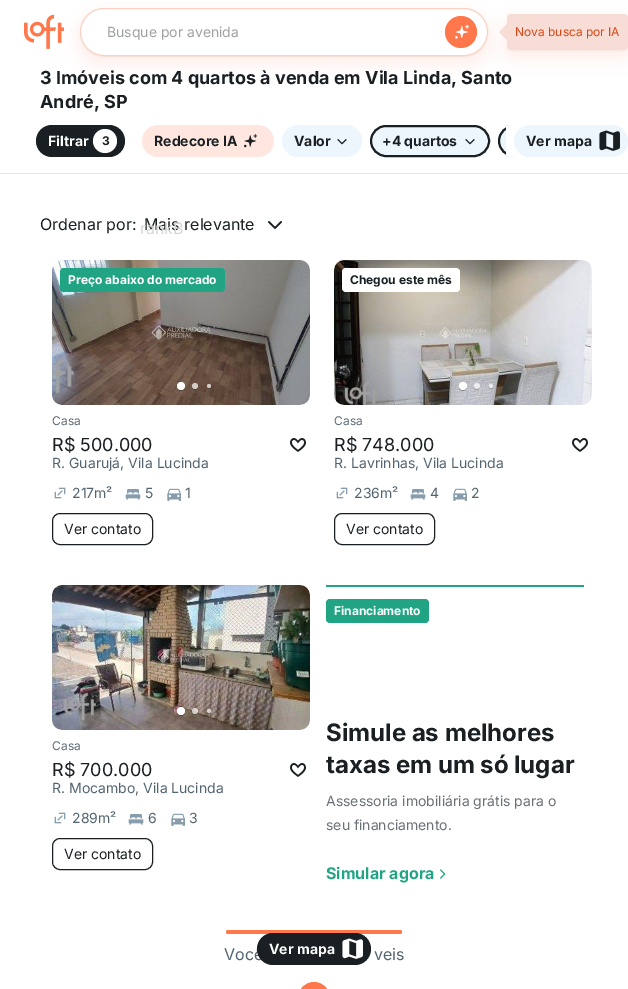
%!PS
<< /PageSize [628 989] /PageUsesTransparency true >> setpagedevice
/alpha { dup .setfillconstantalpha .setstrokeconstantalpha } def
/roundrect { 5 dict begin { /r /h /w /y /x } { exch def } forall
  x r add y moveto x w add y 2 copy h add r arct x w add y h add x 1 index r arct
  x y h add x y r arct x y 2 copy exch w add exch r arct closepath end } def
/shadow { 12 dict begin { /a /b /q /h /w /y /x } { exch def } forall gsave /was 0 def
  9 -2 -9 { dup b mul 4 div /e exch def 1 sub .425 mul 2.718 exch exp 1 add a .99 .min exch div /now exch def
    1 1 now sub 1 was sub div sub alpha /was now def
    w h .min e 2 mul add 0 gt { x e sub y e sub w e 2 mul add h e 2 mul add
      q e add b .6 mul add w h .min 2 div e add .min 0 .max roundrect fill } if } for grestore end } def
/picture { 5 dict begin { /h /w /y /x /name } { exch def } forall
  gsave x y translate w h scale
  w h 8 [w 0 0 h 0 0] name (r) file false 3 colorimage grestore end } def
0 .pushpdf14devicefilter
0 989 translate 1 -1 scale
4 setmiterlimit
1 setgray
0 0 628 989 rectfill
(img1.rgb) 24 14 40 35 picture
0.957 0.294 0.075 setrgbcolor
78 13 412 52 26 7.5 0.07 shadow
0 setgray
81 10 406 46 23 1 0.1 shadow
1 setgray
80 8 408 48 24 roundrect fill
0.3 alpha
0.961 0.404 0.22 setrgbcolor
80.5 8.5 407 47 23.5 roundrect stroke
/Inter-Regular [14 0 0 -14 0 0] selectfont
1 alpha
0.62 0.631 0.639 setrgbcolor
107 37 moveto (Busque por avenida) show
1 0.467 0.29 setrgbcolor
newpath 461 32 16 0 360 arc closepath fill
(img2.rgb) 455 24 14 15 picture
0.957 0.294 0.075 setrgbcolor
505 19 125 40 6 7.5 0.07 shadow
0 setgray
508 16 119 34 3 1 0.1 shadow
0.969 0.867 0.835 setrgbcolor
newpath 507 24 moveto 507 40 lineto 499 32 lineto closepath fill
507 14 121 36 4 roundrect fill
/Inter-Regular [12 0 0 -12 0 0] selectfont
0.851 0.275 0.086 setrgbcolor
515 36 moveto (Nova busca por IA) show
/Inter-Bold [18 0 0 -18 0 0] selectfont
0.098 0.122 0.137 setrgbcolor
40 84 moveto (3 Imóveis com 4 quartos à venda em Vila Linda, Santo) show
40 108 moveto (André, SP) show
0.851 0.914 0.961 setrgbcolor
0 173 628 1 rectfill
0.098 0.122 0.137 setrgbcolor
36 125 89 32 16 roundrect fill
/Inter-Bold [14 0 0 -14 0 0] selectfont
1 setgray
48 146 moveto (Filtrar) show
newpath 105 141 12 0 360 arc closepath fill
/Inter-Bold [12 0 0 -12 0 0] selectfont
0.098 0.122 0.137 setrgbcolor
102 145 moveto (3) show
1 0.906 0.875 setrgbcolor
142 125 132 32 16 roundrect fill
/Inter-Bold [14 0 0 -14 0 0] selectfont
0.098 0.122 0.137 setrgbcolor
154 146 moveto (Redecore IA) show
(img3.rgb) 244 134 14 14 picture
0.929 0.965 0.988 setrgbcolor
282 125 80 32 16 roundrect fill
0.098 0.122 0.137 setrgbcolor
294 146 moveto (Valor) show
(img4.rgb) 337 139 10 6 picture
0.929 0.965 0.988 setrgbcolor
371 126 118 30 15 roundrect gsave fill grestore
0.098 0.122 0.137 setrgbcolor
2 setlinewidth
stroke
382 146 moveto (+4 quartos) show
(img4.rgb) 465 139 10 6 picture
0.929 0.965 0.988 setrgbcolor
newpath 514 125 moveto 506 125 lineto 506 157 lineto 514 157 lineto 505 157 498 150 498 141 curveto 498 132 505 125 514 125 curveto closepath fill
514 125 114 32 16 roundrect fill
gsave
134 125 372 48 rectclip
0.098 0.122 0.137 setrgbcolor
499 126 109 30 15 roundrect stroke
grestore
0.098 0.122 0.137 setrgbcolor
526 146 moveto (Ver mapa) show
(img5.rgb) 599 130 21 21 picture
/Inter-Regular [16 0 0 -16 0 0] selectfont
40 230 moveto (Ordenar por:) show
144 230 moveto (Mais relevante) show
(img6.rgb) 268 221 14 8 picture
0.835 0.839 0.839 setrgbcolor
140 234 moveto (rankB) show
(img7.rgb) 52 260 258 145 picture
0.3 alpha
0 setgray
newpath 177 386.5 moveto 176.5 392.5 185.5 392.5 185 386.5 curveto 184.5 391 177.5 391 177 386.5 curveto closepath fill
1 alpha
1 setgray
newpath 181 386 4 0 360 arc closepath fill
0.21 alpha
0 setgray
newpath 192 386.5 moveto 191.5 391 198.5 391 198 386.5 curveto 197.5 389.5 192.5 389.5 192 386.5 curveto closepath fill
0.7 alpha
1 setgray
newpath 195 386 3 0 360 arc closepath fill
0.21 alpha
0 setgray
newpath 207 386.5 moveto 206 389.5 212 389.5 211 386.5 curveto 210.5 388.5 207.5 388.5 207 386.5 curveto closepath fill
0.7 alpha
1 setgray
newpath 209 386 2 0 360 arc closepath fill
1 alpha
0.125 0.643 0.514 setrgbcolor
60 268 165 24 4 roundrect fill
/Inter-Bold [12 0 0 -12 0 0] selectfont
1 setgray
68 284 moveto (Preço abaixo do mercado) show
/Inter-Regular [12 0 0 -12 0 0] selectfont
0.353 0.416 0.459 setrgbcolor
52 425 moveto (Casa) show
/Inter-Regular [18 0 0 -18 0 0] selectfont
0.098 0.122 0.137 setrgbcolor
52 451 moveto (R$ 500.000) show
(img8.rgb) 290 438 16 14 picture
/Inter-Regular [14 0 0 -14 0 0] selectfont
0.325 0.392 0.439 setrgbcolor
52 468 moveto (R. Guarujá, Vila Lucinda) show
(img9.rgb) 54 487 12 12 picture
72 498 moveto (217m²) show
(img10.rgb) 125 489 16 11 picture
145 498 moveto (5) show
(img11.rgb) 167 488 14 13 picture
185 498 moveto (1) show
0.098 0.122 0.137 setrgbcolor
1 setlinewidth
52.5 513.5 100 31 7.5 roundrect stroke
64 534 moveto (Ver contato) show
(img12.rgb) 334 260 258 145 picture
0.3 alpha
0 setgray
newpath 459 386.5 moveto 458.5 392.5 467.5 392.5 467 386.5 curveto 466.5 391 459.5 391 459 386.5 curveto closepath fill
1 alpha
1 setgray
newpath 463 386 4 0 360 arc closepath fill
0.21 alpha
0 setgray
newpath 474 386.5 moveto 473.5 391 480.5 391 480 386.5 curveto 479.5 389.5 474.5 389.5 474 386.5 curveto closepath fill
0.7 alpha
1 setgray
newpath 477 386 3 0 360 arc closepath fill
0.21 alpha
0 setgray
newpath 489 386.5 moveto 488 389.5 494 389.5 493 386.5 curveto 492.5 388.5 489.5 388.5 489 386.5 curveto closepath fill
0.7 alpha
1 setgray
newpath 491 386 2 0 360 arc closepath fill
1 alpha
342 268 118 24 4 roundrect fill
/Inter-Bold [12 0 0 -12 0 0] selectfont
0.098 0.122 0.137 setrgbcolor
350 284 moveto (Chegou este mês) show
/Inter-Regular [12 0 0 -12 0 0] selectfont
0.353 0.416 0.459 setrgbcolor
334 425 moveto (Casa) show
/Inter-Regular [18 0 0 -18 0 0] selectfont
0.098 0.122 0.137 setrgbcolor
334 451 moveto (R$ 748.000) show
(img8.rgb) 572 438 16 14 picture
/Inter-Regular [14 0 0 -14 0 0] selectfont
0.325 0.392 0.439 setrgbcolor
334 468 moveto (R. Lavrinhas, Vila Lucinda) show
(img9.rgb) 336 487 12 12 picture
354 498 moveto (236m²) show
(img10.rgb) 410 489 16 11 picture
430 498 moveto (4) show
(img11.rgb) 453 488 14 13 picture
471 498 moveto (2) show
0.098 0.122 0.137 setrgbcolor
334.5 513.5 100 31 7.5 roundrect stroke
346 534 moveto (Ver contato) show
(img13.rgb) 52 585 258 145 picture
0.3 alpha
0 setgray
newpath 177 711.5 moveto 176.5 717.5 185.5 717.5 185 711.5 curveto 184.5 716 177.5 716 177 711.5 curveto closepath fill
1 alpha
1 setgray
newpath 181 711 4 0 360 arc closepath fill
0.21 alpha
0 setgray
newpath 192 711.5 moveto 191.5 716 198.5 716 198 711.5 curveto 197.5 714.5 192.5 714.5 192 711.5 curveto closepath fill
0.7 alpha
1 setgray
newpath 195 711 3 0 360 arc closepath fill
0.21 alpha
0 setgray
newpath 207 711.5 moveto 206 714.5 212 714.5 211 711.5 curveto 210.5 713.5 207.5 713.5 207 711.5 curveto closepath fill
0.7 alpha
1 setgray
newpath 209 711 2 0 360 arc closepath fill
/Inter-Regular [12 0 0 -12 0 0] selectfont
1 alpha
0.353 0.416 0.459 setrgbcolor
52 750 moveto (Casa) show
/Inter-Regular [18 0 0 -18 0 0] selectfont
0.098 0.122 0.137 setrgbcolor
52 776 moveto (R$ 700.000) show
(img8.rgb) 290 763 16 14 picture
/Inter-Regular [14 0 0 -14 0 0] selectfont
0.325 0.392 0.439 setrgbcolor
52 793 moveto (R. Mocambo, Vila Lucinda) show
(img9.rgb) 54 812 12 12 picture
72 823 moveto (289m²) show
(img10.rgb) 128 814 16 11 picture
148 823 moveto (6) show
(img11.rgb) 171 813 14 13 picture
189 823 moveto (3) show
0.098 0.122 0.137 setrgbcolor
52.5 838.5 100 31 7.5 roundrect stroke
64 859 moveto (Ver contato) show
0.125 0.643 0.514 setrgbcolor
326 585 258 2 rectfill
326 599 103 24 4 roundrect fill
/Inter-Bold [12 0 0 -12 0 0] selectfont
1 setgray
334 615 moveto (Financiamento) show
/Inter-Bold [24 0 0 -24 0 0] selectfont
0.098 0.122 0.137 setrgbcolor
326 741 moveto (Simule as melhores) show
326 773 moveto (taxas em um só lugar) show
/Inter-Regular [14 0 0 -14 0 0] selectfont
0.412 0.439 0.467 setrgbcolor
326 806 moveto (Assessoria imobiliária grátis para o) show
326 830 moveto (seu financiamento.) show
/Inter-Bold [16 0 0 -16 0 0] selectfont
0.125 0.643 0.514 setrgbcolor
326 879 moveto (Simular agora) show
(img14.rgb) 440 869 6 10 picture
1 0.467 0.29 setrgbcolor
226 930 176 4 2 roundrect fill
/Inter-Regular [16 0 0 -16 0 0] selectfont
0.325 0.392 0.439 setrgbcolor
224 960 moveto (Você) show
0.098 0.122 0.137 setrgbcolor
257 933 114 32 16 roundrect fill
/Inter-Bold [14 0 0 -14 0 0] selectfont
1 setgray
269 954 moveto (Ver mapa) show
(img15.rgb) 342 938 21 21 picture
/Inter-Regular [16 0 0 -16 0 0] selectfont
0.325 0.392 0.439 setrgbcolor
374 960 moveto (veis) show
1 0.467 0.29 setrgbcolor
298.5 982.5 31 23 15.5 roundrect gsave fill grestore
stroke
.poppdf14devicefilter showpage
